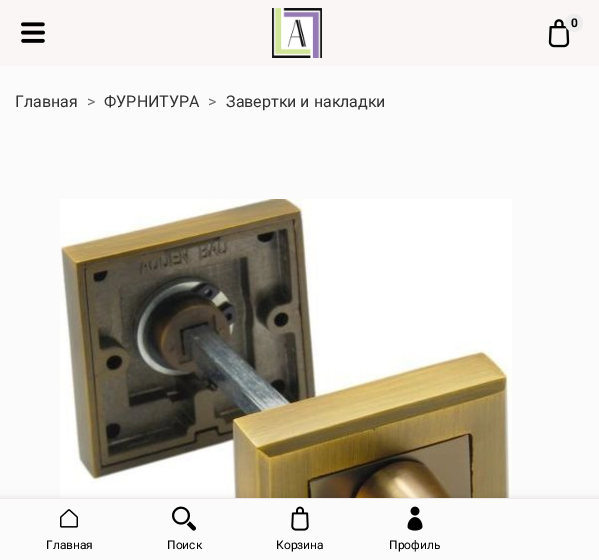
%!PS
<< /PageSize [599 560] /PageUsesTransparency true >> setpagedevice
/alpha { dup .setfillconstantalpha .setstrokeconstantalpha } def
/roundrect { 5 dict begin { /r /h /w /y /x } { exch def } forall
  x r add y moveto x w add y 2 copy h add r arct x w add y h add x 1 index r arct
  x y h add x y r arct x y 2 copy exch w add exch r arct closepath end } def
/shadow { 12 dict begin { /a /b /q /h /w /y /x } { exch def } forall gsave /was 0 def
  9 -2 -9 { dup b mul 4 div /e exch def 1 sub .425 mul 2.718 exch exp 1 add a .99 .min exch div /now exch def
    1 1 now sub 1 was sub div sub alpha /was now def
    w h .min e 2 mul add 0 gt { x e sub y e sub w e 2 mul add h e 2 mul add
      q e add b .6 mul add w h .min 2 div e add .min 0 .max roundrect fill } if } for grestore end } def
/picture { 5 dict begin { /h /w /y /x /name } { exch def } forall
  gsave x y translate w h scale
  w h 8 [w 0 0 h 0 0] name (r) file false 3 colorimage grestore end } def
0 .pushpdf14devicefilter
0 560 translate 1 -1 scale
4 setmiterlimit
0.988 0.984 0.984 setrgbcolor
0 0 599 560 rectfill
0.98 0.965 0.965 setrgbcolor
0 0 599 66 rectfill
(img1.rgb) 21 22 24 21 picture
(img2.rgb) 272 8 50 50 picture
(img3.rgb) 548 19 22 29 picture
0.929 setgray
newpath 574 23 9 0 360 arc closepath fill
/Roboto-Bold [12 0 0 -12 0 0] selectfont
0 setgray
571 27 moveto (0) show
/Roboto-Regular [16 0 0 -16 0 0] selectfont
0.2 setgray
15 107 moveto (Главная) show
0.435 setgray
87 107 moveto (>) show
0.2 setgray
104 107 moveto (ФУРНИТУРА) show
0.435 setgray
208 107 moveto (>) show
0.2 setgray
226 107 moveto (Завертки и накладки) show
(img4.rgb) 60 199 452 299 picture
0 setgray
0 500 599 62 0 5 0.12 shadow
0.988 0.984 0.984 setrgbcolor
0 499 599 61 rectfill
0.933 0.91 0.91 setrgbcolor
0 498 599 1 rectfill
(img5.rgb) 60 509 18 19 picture
/Roboto-Regular [12 0 0 -12 0 0] selectfont
0 setgray
46 549 moveto (Главная) show
(img6.rgb) 172 506 24 25 picture
167 549 moveto (Поиск) show
(img7.rgb) 291 506 18 25 picture
276 549 moveto (Корзина) show
(img8.rgb) 407 506 16 25 picture
389 549 moveto (Профиль) show
.poppdf14devicefilter showpage
